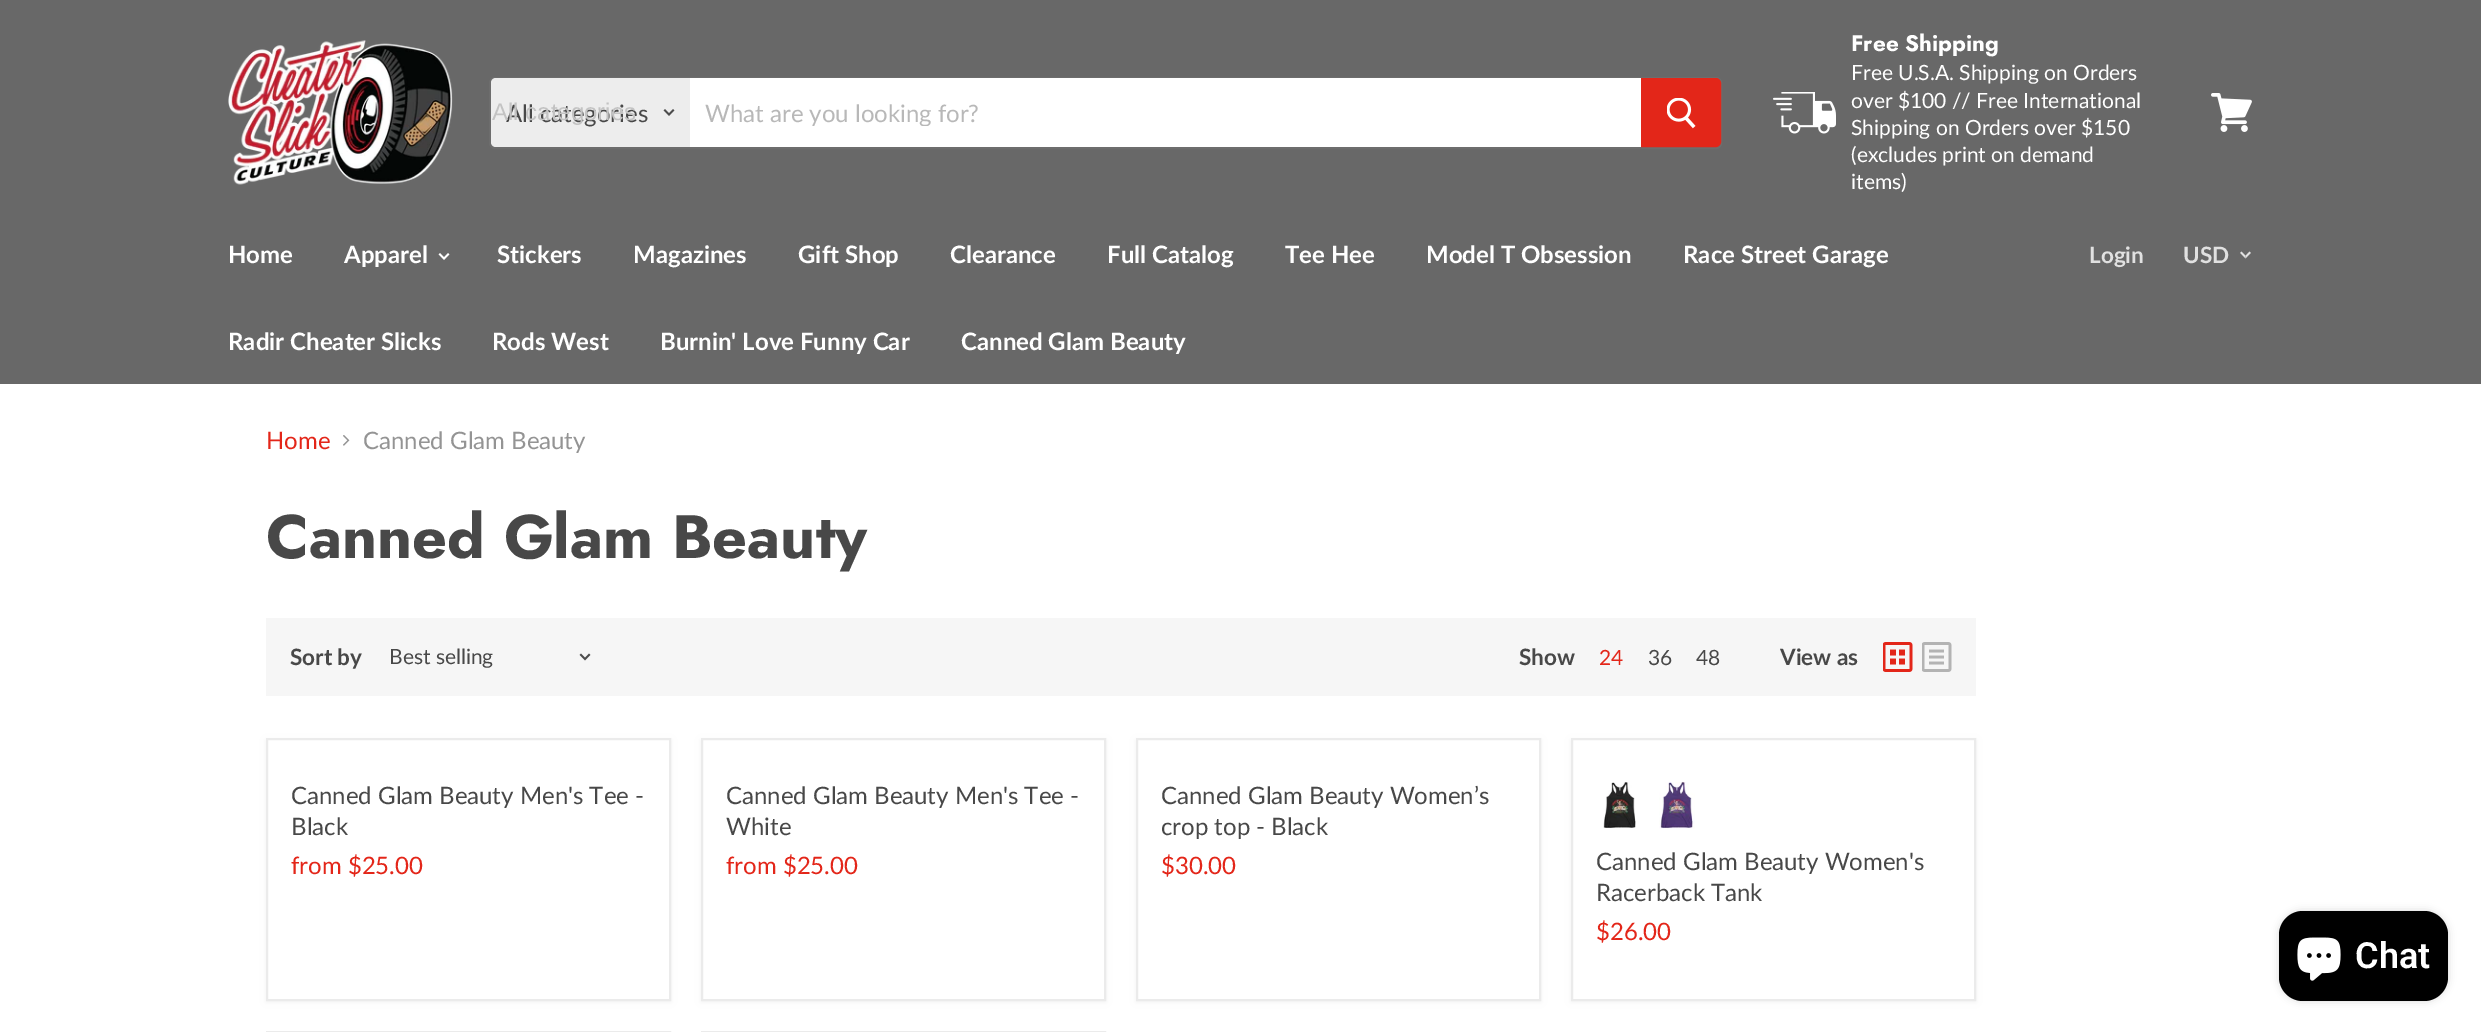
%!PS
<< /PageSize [2481 1032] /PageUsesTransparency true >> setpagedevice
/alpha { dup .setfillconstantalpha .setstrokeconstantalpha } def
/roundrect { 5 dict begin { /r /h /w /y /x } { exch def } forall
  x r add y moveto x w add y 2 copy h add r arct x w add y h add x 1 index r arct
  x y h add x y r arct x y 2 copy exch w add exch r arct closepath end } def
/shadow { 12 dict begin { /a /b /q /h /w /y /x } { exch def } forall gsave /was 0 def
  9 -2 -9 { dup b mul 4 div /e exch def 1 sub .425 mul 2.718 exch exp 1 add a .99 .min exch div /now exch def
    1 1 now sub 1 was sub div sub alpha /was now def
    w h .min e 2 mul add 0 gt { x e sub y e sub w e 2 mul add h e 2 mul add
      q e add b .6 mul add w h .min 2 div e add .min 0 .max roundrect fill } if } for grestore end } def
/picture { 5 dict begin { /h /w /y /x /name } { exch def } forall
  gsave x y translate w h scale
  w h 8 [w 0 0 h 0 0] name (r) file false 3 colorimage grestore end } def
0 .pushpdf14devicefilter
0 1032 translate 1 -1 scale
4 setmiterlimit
1 setgray
0 0 2481 1032 rectfill
0.408 setgray
0 0 2481 384 rectfill
(img1.rgb) 228 40 225 145 picture
0.427 setgray
2 setlinewidth
490 78 1231 70 5 roundrect stroke
0.929 setgray
newpath 496 78 moveto 690 78 lineto 690 147 lineto 496 147 lineto 493 147 491 145 491 142 curveto 491 83 lineto 491 80 493 78 496 78 curveto closepath fill
/Lato-Regular [24 0 0 -24 0 0] selectfont
0.282 setgray
506 122 moveto (All categories) show
/LiberationSans-Regular [24 0 0 -24 0 0] selectfont
0.765 setgray
492 120 moveto (All categories) show
(img2.rgb) 663 109 12 7 picture
1 setgray
690 78 951 69 rectfill
gsave
705 98 921 28 rectclip
/Lato-Regular [24 0 0 -24 0 0] selectfont
0.722 setgray
705 122 moveto (What are you looking for?) show
grestore
0.89 0.149 0.098 setrgbcolor
newpath 1642 79 moveto 1716 79 lineto 1718 79 1720 81 1720 83 curveto 1720 142 lineto 1720 144 1718 146 1716 146 curveto 1642 146 lineto closepath gsave fill grestore
stroke
(img3.rgb) 1667 98 29 31 picture
(img4.rgb) 1773 92 63 42 picture
/Jost-Bold [22.5 0 0 -22.5 0 0] selectfont
1 setgray
1851 51 moveto (Free Shipping) show
/Lato-Regular [21 0 0 -21 0 0] selectfont
1851 80 moveto (Free U.S.A. Shipping on Orders) show
1851 108 moveto (over $100 // Free International) show
1851 135 moveto (Shipping on Orders over $150) show
1851 162 moveto (\(excludes print on demand) show
1851 189 moveto (items\)) show
(img5.rgb) 2211 93 41 39 picture
/Lato-Bold [24 0 0 -24 0 0] selectfont
228 263 moveto (Home) show
344 263 moveto (Apparel) show
(img6.rgb) 438 253 12 7 picture
497 263 moveto (Stickers) show
633 263 moveto (Magazines) show
798 263 moveto (Gift Shop) show
950 263 moveto (Clearance) show
1107 263 moveto (Full Catalog) show
1285 263 moveto (Tee Hee) show
1426 263 moveto (Model T Obsession) show
1683 263 moveto (Race Street Garage) show
228 350 moveto (Radir Cheater Slicks) show
492 350 moveto (Rods West) show
660 350 moveto (Burnin' Love Funny Car) show
961 350 moveto (Canned Glam Beauty) show
/Lato-Bold [22.5 0 0 -22.5 0 0] selectfont
0.882 setgray
2089 263 moveto (Login) show
2183 263 moveto (USD) show
(img7.rgb) 2240 251 11 8 picture
/Lato-Regular [24 0 0 -24 0 0] selectfont
0.89 0.149 0.098 setrgbcolor
266 449 moveto (Home) show
(img8.rgb) 343 435 7 11 picture
0.58 setgray
363 449 moveto (Canned Glam Beauty) show
/Jost-Bold [61.25 0 0 -61.25 0 0] selectfont
0.282 setgray
266 558 moveto (Canned Glam Beauty) show
0.965 setgray
266 618 1710 78 rectfill
/Lato-Bold [22.5 0 0 -22.5 0 0] selectfont
0.282 setgray
290 665 moveto (Sort by) show
/Lato-Regular [21 0 0 -21 0 0] selectfont
389 664 moveto (Best selling) show
(img9.rgb) 579 653 12 8 picture
/Lato-Bold [22.5 0 0 -22.5 0 0] selectfont
1519 665 moveto (Show) show
/Lato-Regular [21 0 0 -21 0 0] selectfont
0.89 0.149 0.098 setrgbcolor
1599 665 moveto (24) show
0.282 setgray
1648 665 moveto (36) show
1696 665 moveto (48) show
/Lato-Bold [22.5 0 0 -22.5 0 0] selectfont
1780 665 moveto (View as) show
(img10.rgb) 1883 642 30 30 picture
(img11.rgb) 1922 642 30 30 picture
0.498 setgray
266 740 405 262 0 3 0.11 shadow
1 setgray
newpath 267 739 moveto 670 739 lineto 670 1000 lineto 267 1000 lineto closepath gsave fill grestore
0.922 setgray
stroke
/Lato-Regular [24 0 0 -24 0 0] selectfont
0.282 setgray
291 804 moveto (Canned Glam Beauty Men's Tee -) show
291 835 moveto (Black) show
0.89 0.149 0.098 setrgbcolor
291 874 moveto (from $25.00) show
0.498 setgray
701 740 405 262 0 3 0.11 shadow
1 setgray
newpath 702 739 moveto 1105 739 lineto 1105 1000 lineto 702 1000 lineto closepath gsave fill grestore
0.922 setgray
stroke
0.282 setgray
726 804 moveto (Canned Glam Beauty Men's Tee -) show
726 835 moveto (White) show
0.89 0.149 0.098 setrgbcolor
726 874 moveto (from $25.00) show
0.498 setgray
1136 740 405 262 0 3 0.11 shadow
1 setgray
newpath 1137 739 moveto 1540 739 lineto 1540 1000 lineto 1137 1000 lineto closepath gsave fill grestore
0.922 setgray
stroke
0.282 setgray
1161 804 moveto (Canned Glam Beauty Women’s) show
1161 835 moveto (crop top - Black) show
0.89 0.149 0.098 setrgbcolor
1161 874 moveto ($30.00) show
0.498 setgray
1571 740 405 262 0 3 0.11 shadow
1 setgray
newpath 1572 739 moveto 1975 739 lineto 1975 1000 lineto 1572 1000 lineto closepath gsave fill grestore
0.922 setgray
stroke
(img12.rgb) 1603 782 33 46 picture
(img13.rgb) 1659 781 36 48 picture
0.282 setgray
1596 870 moveto (Canned Glam Beauty Women's) show
1596 901 moveto (Racerback Tank) show
0.89 0.149 0.098 setrgbcolor
1596 940 moveto ($26.00) show
0.922 setgray
267 1032 403 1 rectstroke
702 1032 403 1 rectstroke
0 setgray
2279 911 169 90 24 4 0.15 shadow
2279 911 169 90 24 roundrect fill
(img14.rgb) 2297 937 44 44 picture
/Roboto-SemiBold [36 0 0 -36 0 0] selectfont
1 setgray
2355 968 moveto (Chat) show
.poppdf14devicefilter showpage
